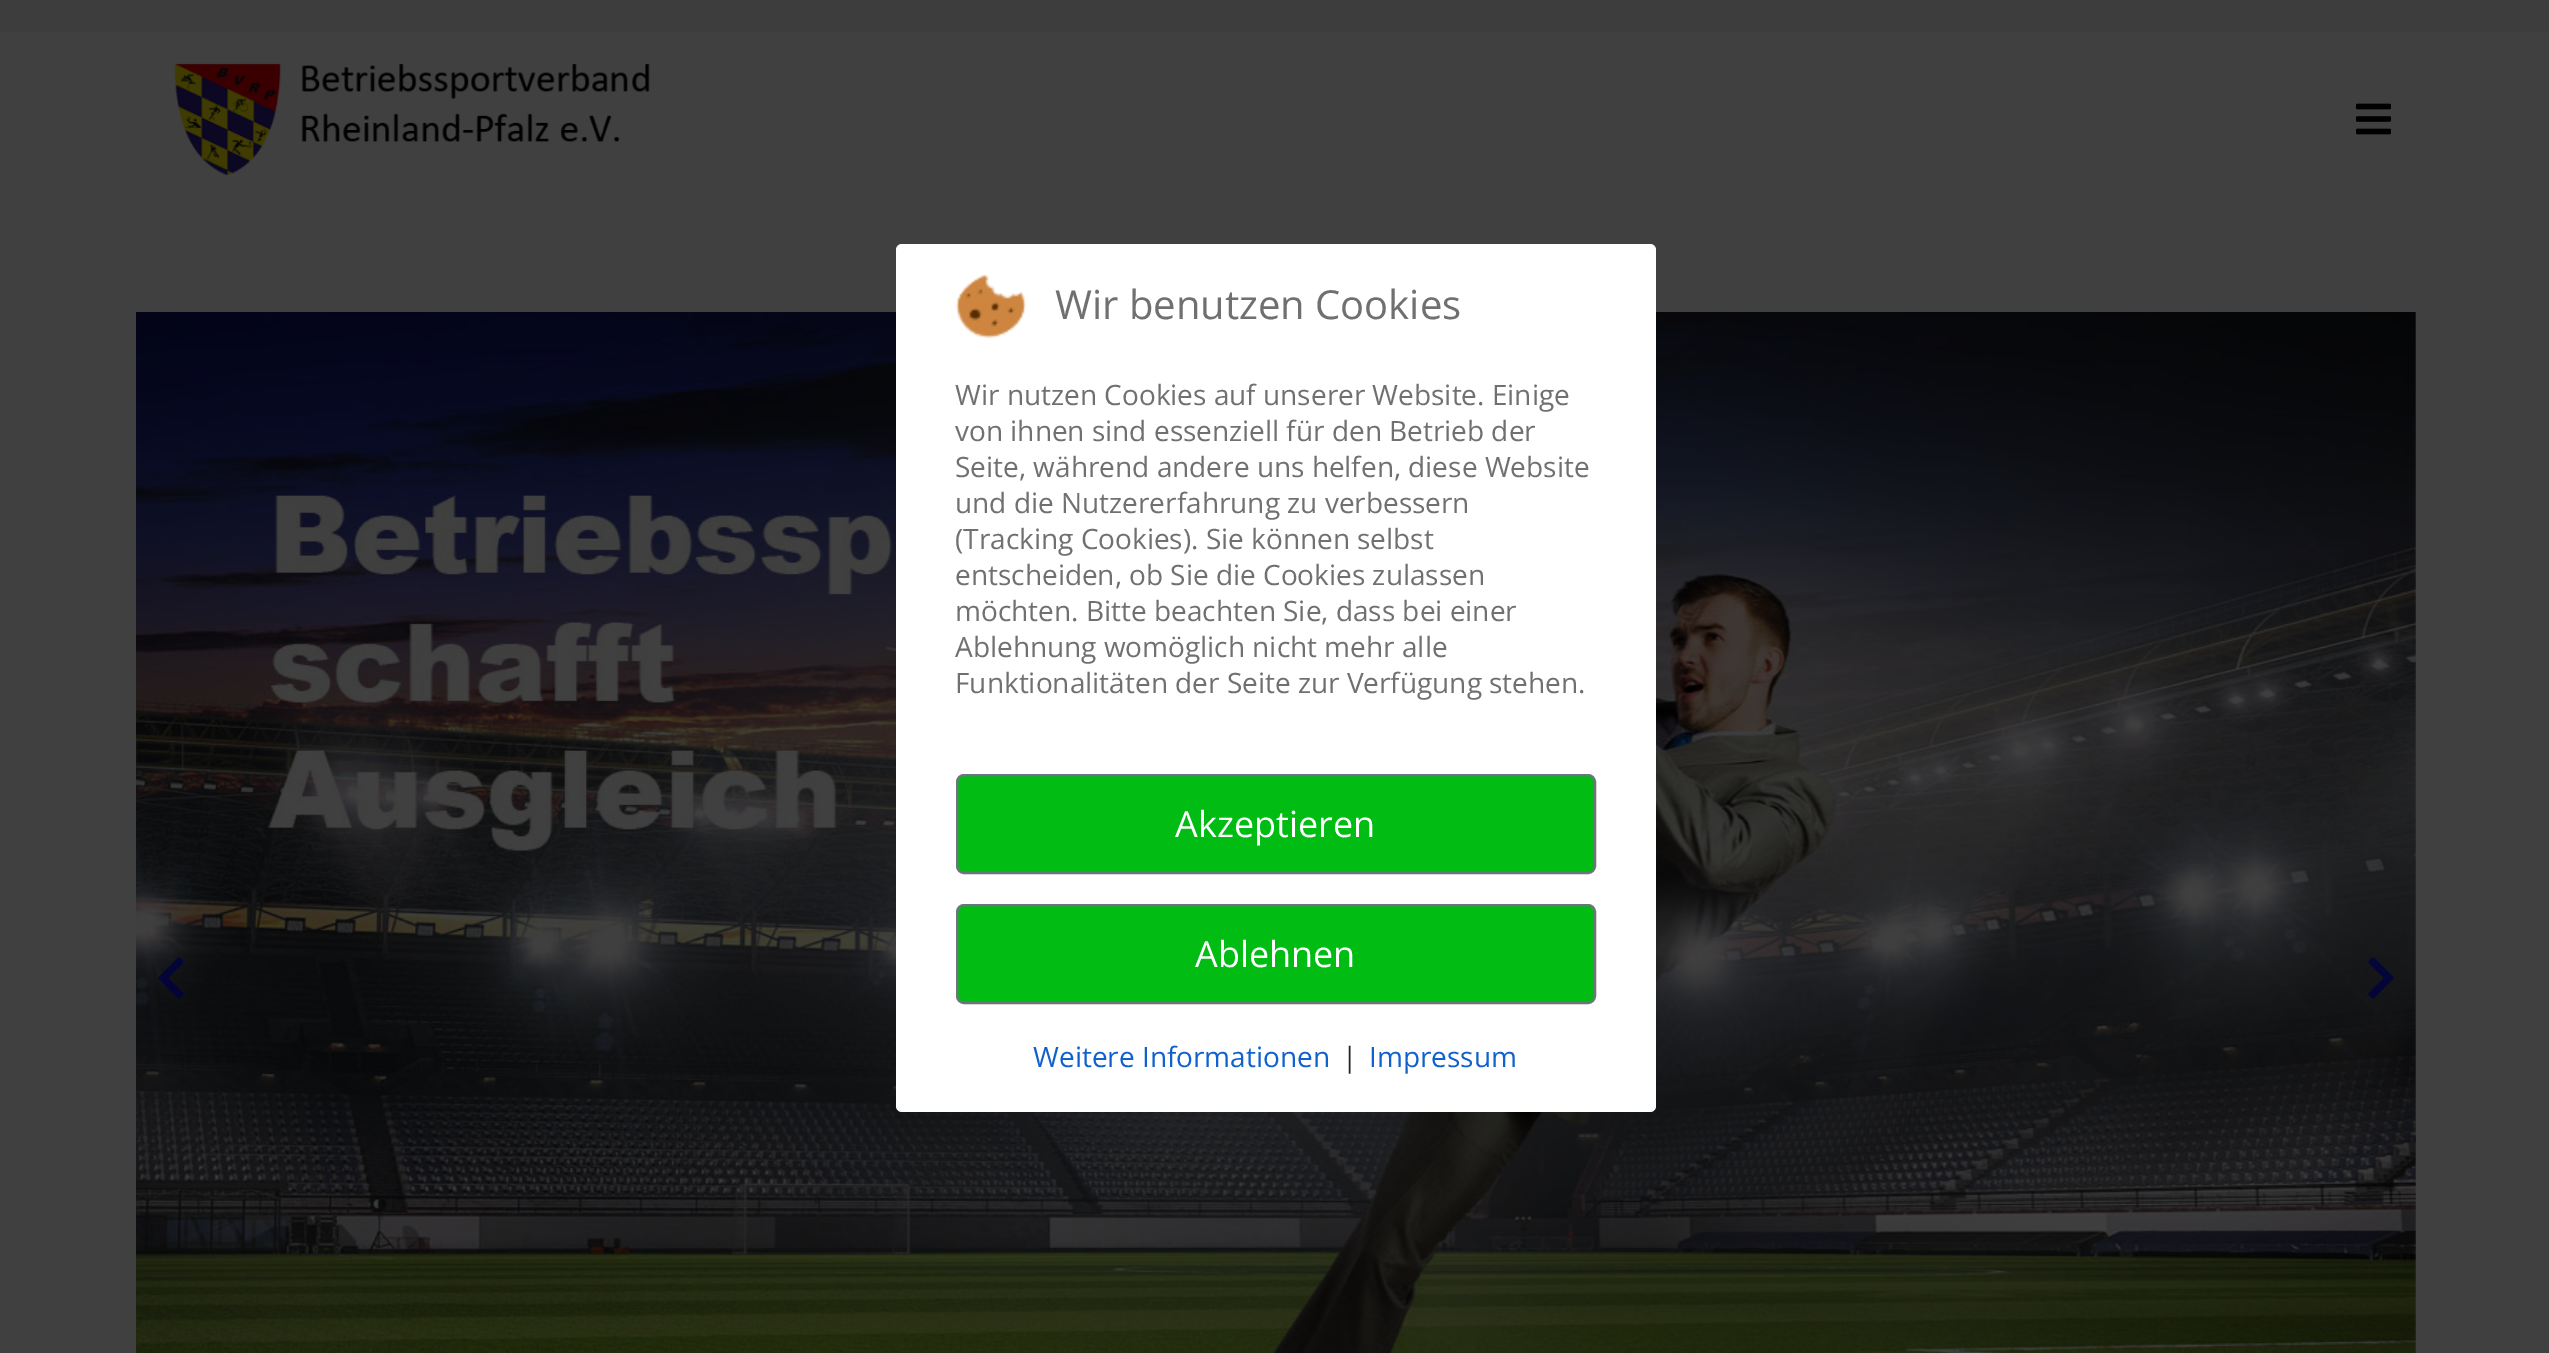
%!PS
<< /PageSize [2549 1353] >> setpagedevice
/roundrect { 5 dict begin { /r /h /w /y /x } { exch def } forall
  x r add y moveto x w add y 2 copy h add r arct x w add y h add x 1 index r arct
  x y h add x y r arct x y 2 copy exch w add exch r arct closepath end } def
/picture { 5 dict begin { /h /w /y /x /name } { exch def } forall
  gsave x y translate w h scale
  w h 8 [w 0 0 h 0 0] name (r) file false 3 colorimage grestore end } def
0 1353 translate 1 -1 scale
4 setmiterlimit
0.251 setgray
0 0 2549 1353 rectfill
0.239 setgray
0 0 2549 32 rectfill
(img1.rgb) 174 63 476 113 picture
(img2.rgb) 2356 103 35 32 picture
(img3.rgb) 136 312 2280 1041 picture
(img4.rgb) 158 957 26 42 picture
(img5.rgb) 2368 957 26 42 picture
1 setgray
896 244 760 868 6 roundrect fill
(img6.rgb) 955 274 71 64 picture
/OpenSans-Regular [40 0 0 -40 0 0] selectfont
0.439 setgray
1055 319 moveto (Wir benutzen Cookies) show
/OpenSans-Regular [28 0 0 -28 0 0] selectfont
955 405 moveto (Wir nutzen Cookies auf unserer Website. Einige) show
955 441 moveto (von ihnen sind essenziell für den Betrieb der) show
955 477 moveto (Seite, während andere uns helfen, diese Website) show
955 513 moveto (und die Nutzererfahrung zu verbessern) show
955 549 moveto (\(Tracking Cookies\). Sie können selbst) show
955 585 moveto (entscheiden, ob Sie die Cookies zulassen) show
955 621 moveto (möchten. Bitte beachten Sie, dass bei einer) show
955 657 moveto (Ablehnung womöglich nicht mehr alle) show
955 693 moveto (Funktionalitäten der Seite zur Verfügung stehen.) show
0 0.737 0.075 setrgbcolor
957 775 638 98 7 roundrect gsave fill grestore
0.424 0.459 0.49 setrgbcolor
2 setlinewidth
stroke
/OpenSans-Regular [36 0 0 -36 0 0] selectfont
1 setgray
1175 837 moveto (Akzeptieren) show
0 0.737 0.075 setrgbcolor
957 905 638 98 7 roundrect gsave fill grestore
0.424 0.459 0.49 setrgbcolor
stroke
1 setgray
1195 967 moveto (Ablehnen) show
/OpenSans-Regular [28 0 0 -28 0 0] selectfont
0.063 0.38 0.8 setrgbcolor
1033 1067 moveto (Weitere Informationen) show
0.129 0.145 0.161 setrgbcolor
1342 1067 moveto (|) show
0.063 0.38 0.8 setrgbcolor
1369 1067 moveto (Impressum) show
showpage
